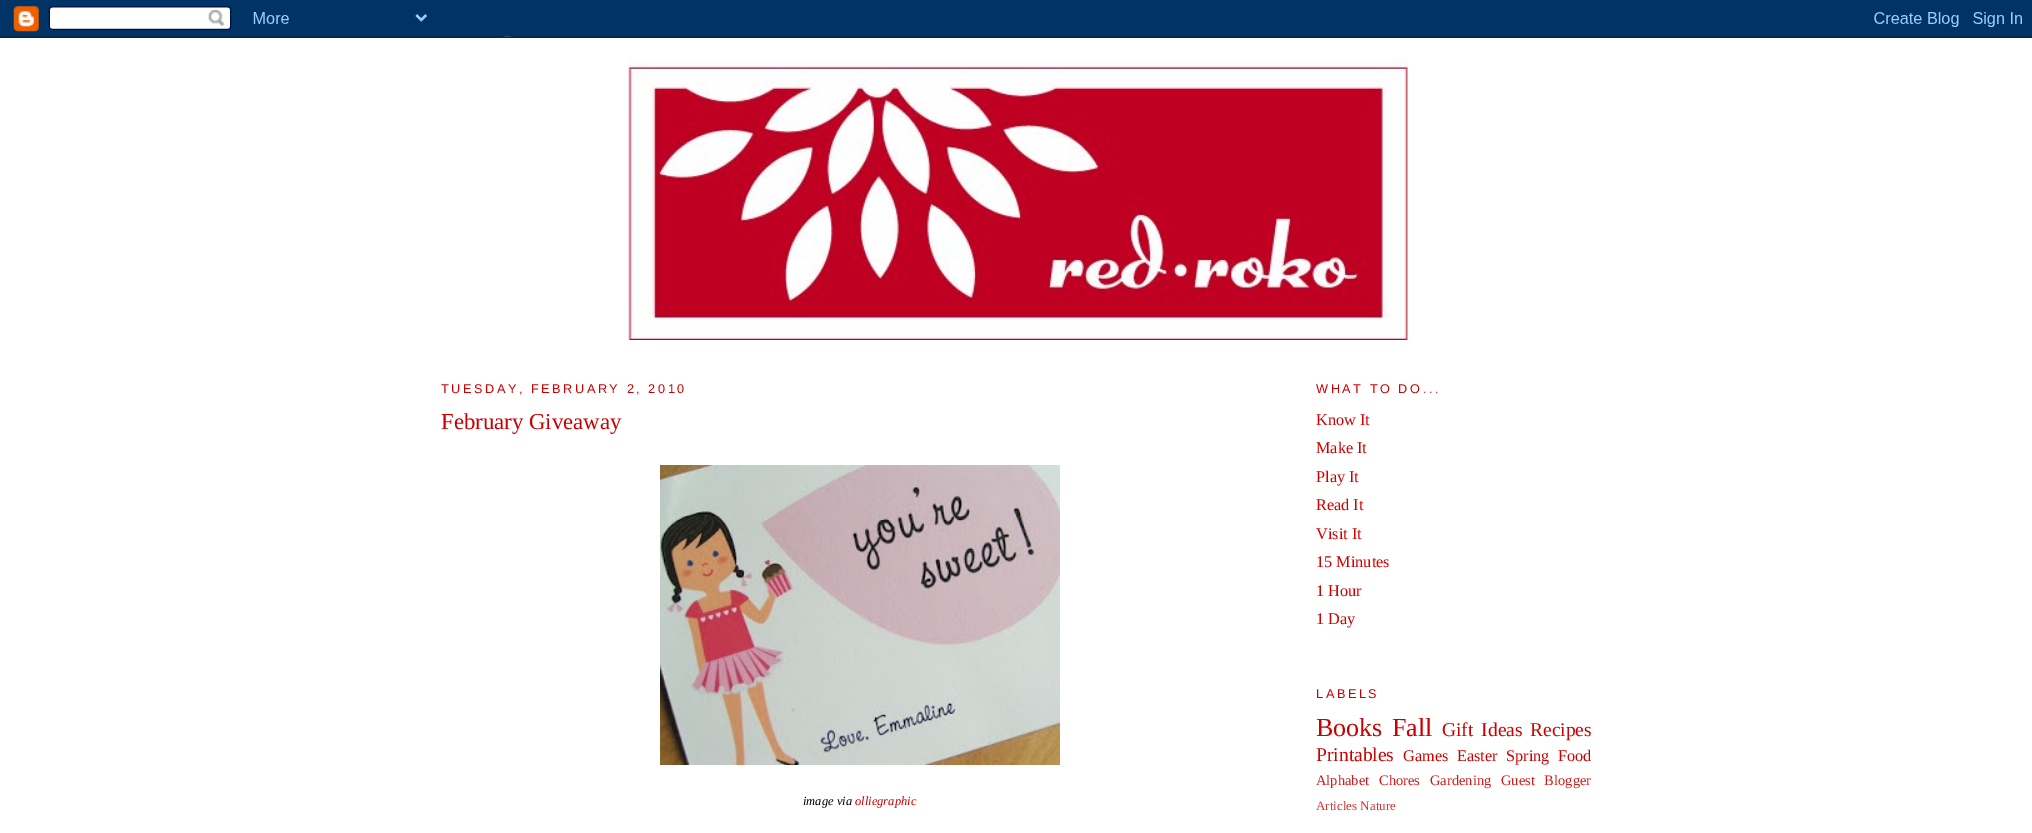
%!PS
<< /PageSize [2032 833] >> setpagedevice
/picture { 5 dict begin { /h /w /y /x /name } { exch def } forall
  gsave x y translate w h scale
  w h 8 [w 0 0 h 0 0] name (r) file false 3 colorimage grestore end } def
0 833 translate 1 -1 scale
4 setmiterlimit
1 setgray
0 0 2032 833 rectfill
(img1.rgb) 0 0 2032 38 picture
(img2.rgb) 628 59 780 281 picture
/LiberationSans-Regular [12.7 0 0 -12.7 0 0] selectfont
0.8 0 0 setrgbcolor
441 393 moveto 2.55 0 (TUESDAY, FEBRUARY 2, 2010) ashow
/LiberationSerif-Regular [22.75 0 0 -22.75 0 0] selectfont
441 429 moveto (February Giveaway) show
(img3.rgb) 660 465 400 300 picture
/LiberationSerif-Italic [12.5 0 0 -12.5 0 0] selectfont
0 setgray
803 805 moveto (image via) show
0.8 0 0 setrgbcolor
855 805 moveto (olliegraphic) show
/LiberationSans-Regular [12.7 0 0 -12.7 0 0] selectfont
1316 393 moveto 2.55 0 (WHAT TO DO...) ashow
/LiberationSerif-Regular [16.25 0 0 -16.25 0 0] selectfont
1316 425 moveto (Know It) show
1316 453 moveto (Make It) show
1316 482 moveto (Play It) show
1316 510 moveto (Read It) show
1316 539 moveto (Visit It) show
1316 567 moveto (15 Minutes) show
1316 596 moveto (1 Hour) show
1316 624 moveto (1 Day) show
/LiberationSans-Regular [12.7 0 0 -12.7 0 0] selectfont
1316 698 moveto 2.55 0 (LABELS) ashow
/LiberationSerif-Regular [26 0 0 -26 0 0] selectfont
1316 736 moveto (Books) show
1392 736 moveto (Fall) show
/LiberationSerif-Regular [19.5 0 0 -19.5 0 0] selectfont
1442 736 moveto 3 0 32 (Gift Ideas) widthshow
1530 736 moveto (Recipes) show
1316 761 moveto (Printables) show
/LiberationSerif-Regular [16.25 0 0 -16.25 0 0] selectfont
1403 761 moveto (Games) show
1457 761 moveto (Easter) show
1506 761 moveto (Spring) show
1558 761 moveto (Food) show
/LiberationSerif-Regular [14.5 0 0 -14.5 0 0] selectfont
0.82 0.102 0.102 setrgbcolor
1316 785 moveto (Alphabet) show
1379 785 moveto (Chores) show
1430 785 moveto (Gardening) show
1501 785 moveto 6 0 32 (Guest Blogger) widthshow
/LiberationSerif-Regular [13 0 0 -13 0 0] selectfont
0.839 0.2 0.2 setrgbcolor
1316 810 moveto (Articles Nature) show
showpage
